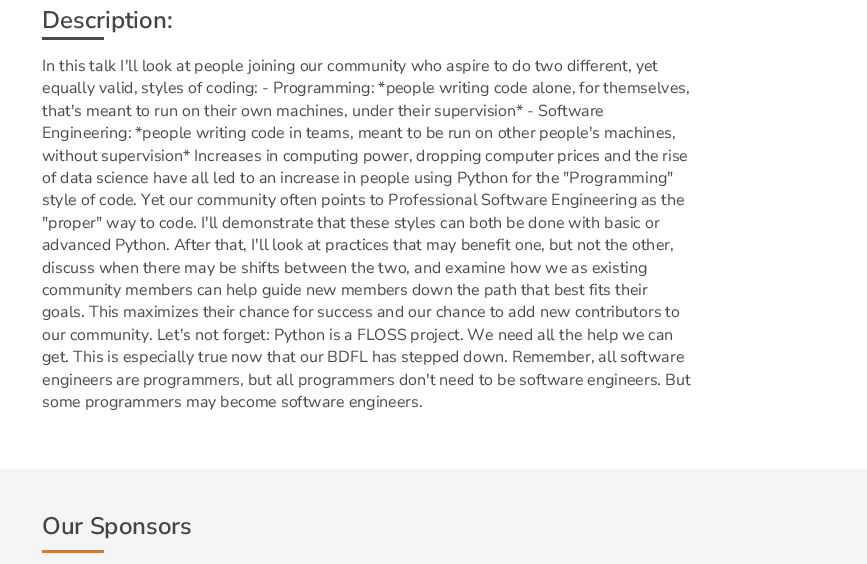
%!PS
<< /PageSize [867 564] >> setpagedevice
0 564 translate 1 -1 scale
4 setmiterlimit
1 setgray
0 0 867 564 rectfill
/NunitoSans-SemiBold [24 0 0 -24 0 0] selectfont
0.267 setgray
42 28 moveto (Description:) show
0.29 setgray
42 37 62 3 rectfill
/NunitoSans-Regular [16 0 0 -16 0 0] selectfont
42 71 moveto (In this talk I'll look at people joining our community who aspire to do two different, yet) show
42 93 moveto (equally valid, styles of coding: - Programming: *people writing code alone, for themselves,) show
42 116 moveto (that's meant to run on their own machines, under their supervision* - Software) show
42 138 moveto (Engineering: *people writing code in teams, meant to be run on other people's machines,) show
42 161 moveto (without supervision* Increases in computing power, dropping computer prices and the rise) show
42 183 moveto (of data science have all led to an increase in people using Python for the "Programming") show
42 205 moveto (style of code. Yet our community often points to Professional Software Engineering as the) show
42 228 moveto ("proper" way to code. I'll demonstrate that these styles can both be done with basic or) show
42 250 moveto (advanced Python. After that, I'll look at practices that may benefit one, but not the other,) show
42 273 moveto (discuss when there may be shifts between the two, and examine how we as existing) show
42 295 moveto (community members can help guide new members down the path that best fits their) show
42 317 moveto (goals. This maximizes their chance for success and our chance to add new contributors to) show
42 340 moveto (our community. Let's not forget: Python is a FLOSS project. We need all the help we can) show
42 362 moveto (get. This is especially true now that our BDFL has stepped down. Remember, all software) show
42 385 moveto (engineers are programmers, but all programmers don't need to be software engineers. But) show
42 407 moveto (some programmers may become software engineers.) show
0.961 setgray
0 469 867 95 rectfill
/NunitoSans-SemiBold [24 0 0 -24 0 0] selectfont
0.267 setgray
42 534 moveto (Our Sponsors) show
0.851 0.475 0.157 setrgbcolor
42 550 62 3 rectfill
showpage
